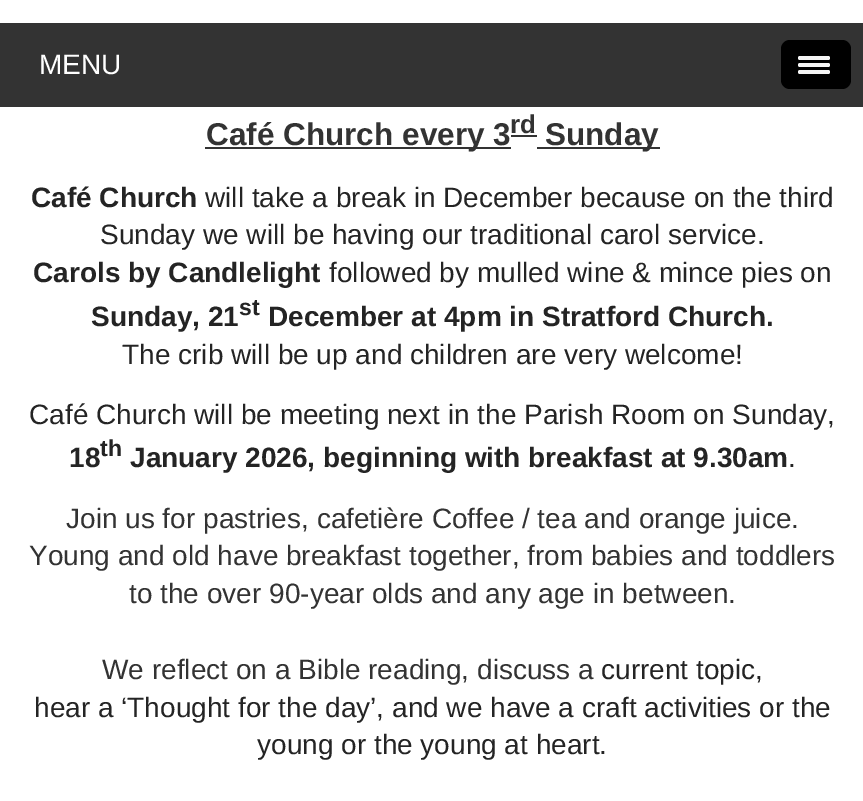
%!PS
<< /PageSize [863 801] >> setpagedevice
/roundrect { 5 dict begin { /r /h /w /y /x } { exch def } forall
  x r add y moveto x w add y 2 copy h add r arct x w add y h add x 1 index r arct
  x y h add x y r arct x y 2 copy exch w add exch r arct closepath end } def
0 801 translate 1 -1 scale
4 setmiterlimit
1 setgray
0 0 863 801 rectfill
0.2 setgray
0 23 863 84 rectfill
/LiberationSans-Regular [28 0 0 -28 0 0] selectfont
1 setgray
39 74 moveto (MENU) show
0 setgray
781 40 70 49 9 roundrect fill
0.961 setgray
798 56 32 4 2 roundrect fill
798 63 32 4 2 roundrect fill
798 70 32 4 2 roundrect fill
0.2 setgray
205 147 306 2 rectfill
/LiberationSans-Bold [31.5 0 0 -31.5 0 0] selectfont
206 145 moveto (Café Church every 3) show
511 135 26 2 rectfill
/LiberationSans-Bold [26 0 0 -26 0 0] selectfont
510 133 moveto (rd) show
537 147 123 2 rectfill
/LiberationSans-Bold [31.5 0 0 -31.5 0 0] selectfont
545 145 moveto (Sunday) show
/LiberationSans-Bold [28 0 0 -28 0 0] selectfont
0.141 setgray
31 207 moveto (Café Church) show
/LiberationSans-Regular [28 0 0 -28 0 0] selectfont
205 207 moveto (will take a break in December because on the third) show
100 244 moveto (Sunday we will be having our traditional carol service.) show
/LiberationSans-Bold [28 0 0 -28 0 0] selectfont
33 282 moveto (Carols by Candlelight) show
/LiberationSans-Regular [28 0 0 -28 0 0] selectfont
329 282 moveto (followed by mulled wine & mince pies on) show
/LiberationSans-Bold [28 0 0 -28 0 0] selectfont
91 326 moveto (Sunday, 21) show
/LiberationSans-Bold [23 0 0 -23 0 0] selectfont
239 315 moveto (st) show
/LiberationSans-Bold [28 0 0 -28 0 0] selectfont
268 326 moveto (December at 4pm in Stratford Church.) show
/LiberationSans-Regular [28 0 0 -28 0 0] selectfont
122 364 moveto (The crib will be up and children are very welcome!) show
29 424 moveto (Café Church will be meeting next in the Parish Room on Sunday,) show
/LiberationSans-Bold [28 0 0 -28 0 0] selectfont
69 467 moveto (18) show
/LiberationSans-Bold [23 0 0 -23 0 0] selectfont
100 456 moveto (th) show
/LiberationSans-Bold [28 0 0 -28 0 0] selectfont
130 467 moveto (January 2026, beginning with breakfast at 9.30am) show
/LiberationSans-Regular [28 0 0 -28 0 0] selectfont
788 467 moveto (.) show
0.2 setgray
66 528 moveto (Join us for pastries, cafetière Coffee / tea and orange juice.) show
29 565 moveto (Young and old have breakfast together, from babies and toddlers) show
129 603 moveto (to the over 90-year olds and any age in between.) show
102 679 moveto (We reflect on a Bible reading, discuss a) show
0.141 setgray
601 679 moveto (current topic,) show
34 717 moveto (hear a ‘Thought for the day’, and we have a craft activities or the) show
257 754 moveto (young or the young at heart.) show
showpage
